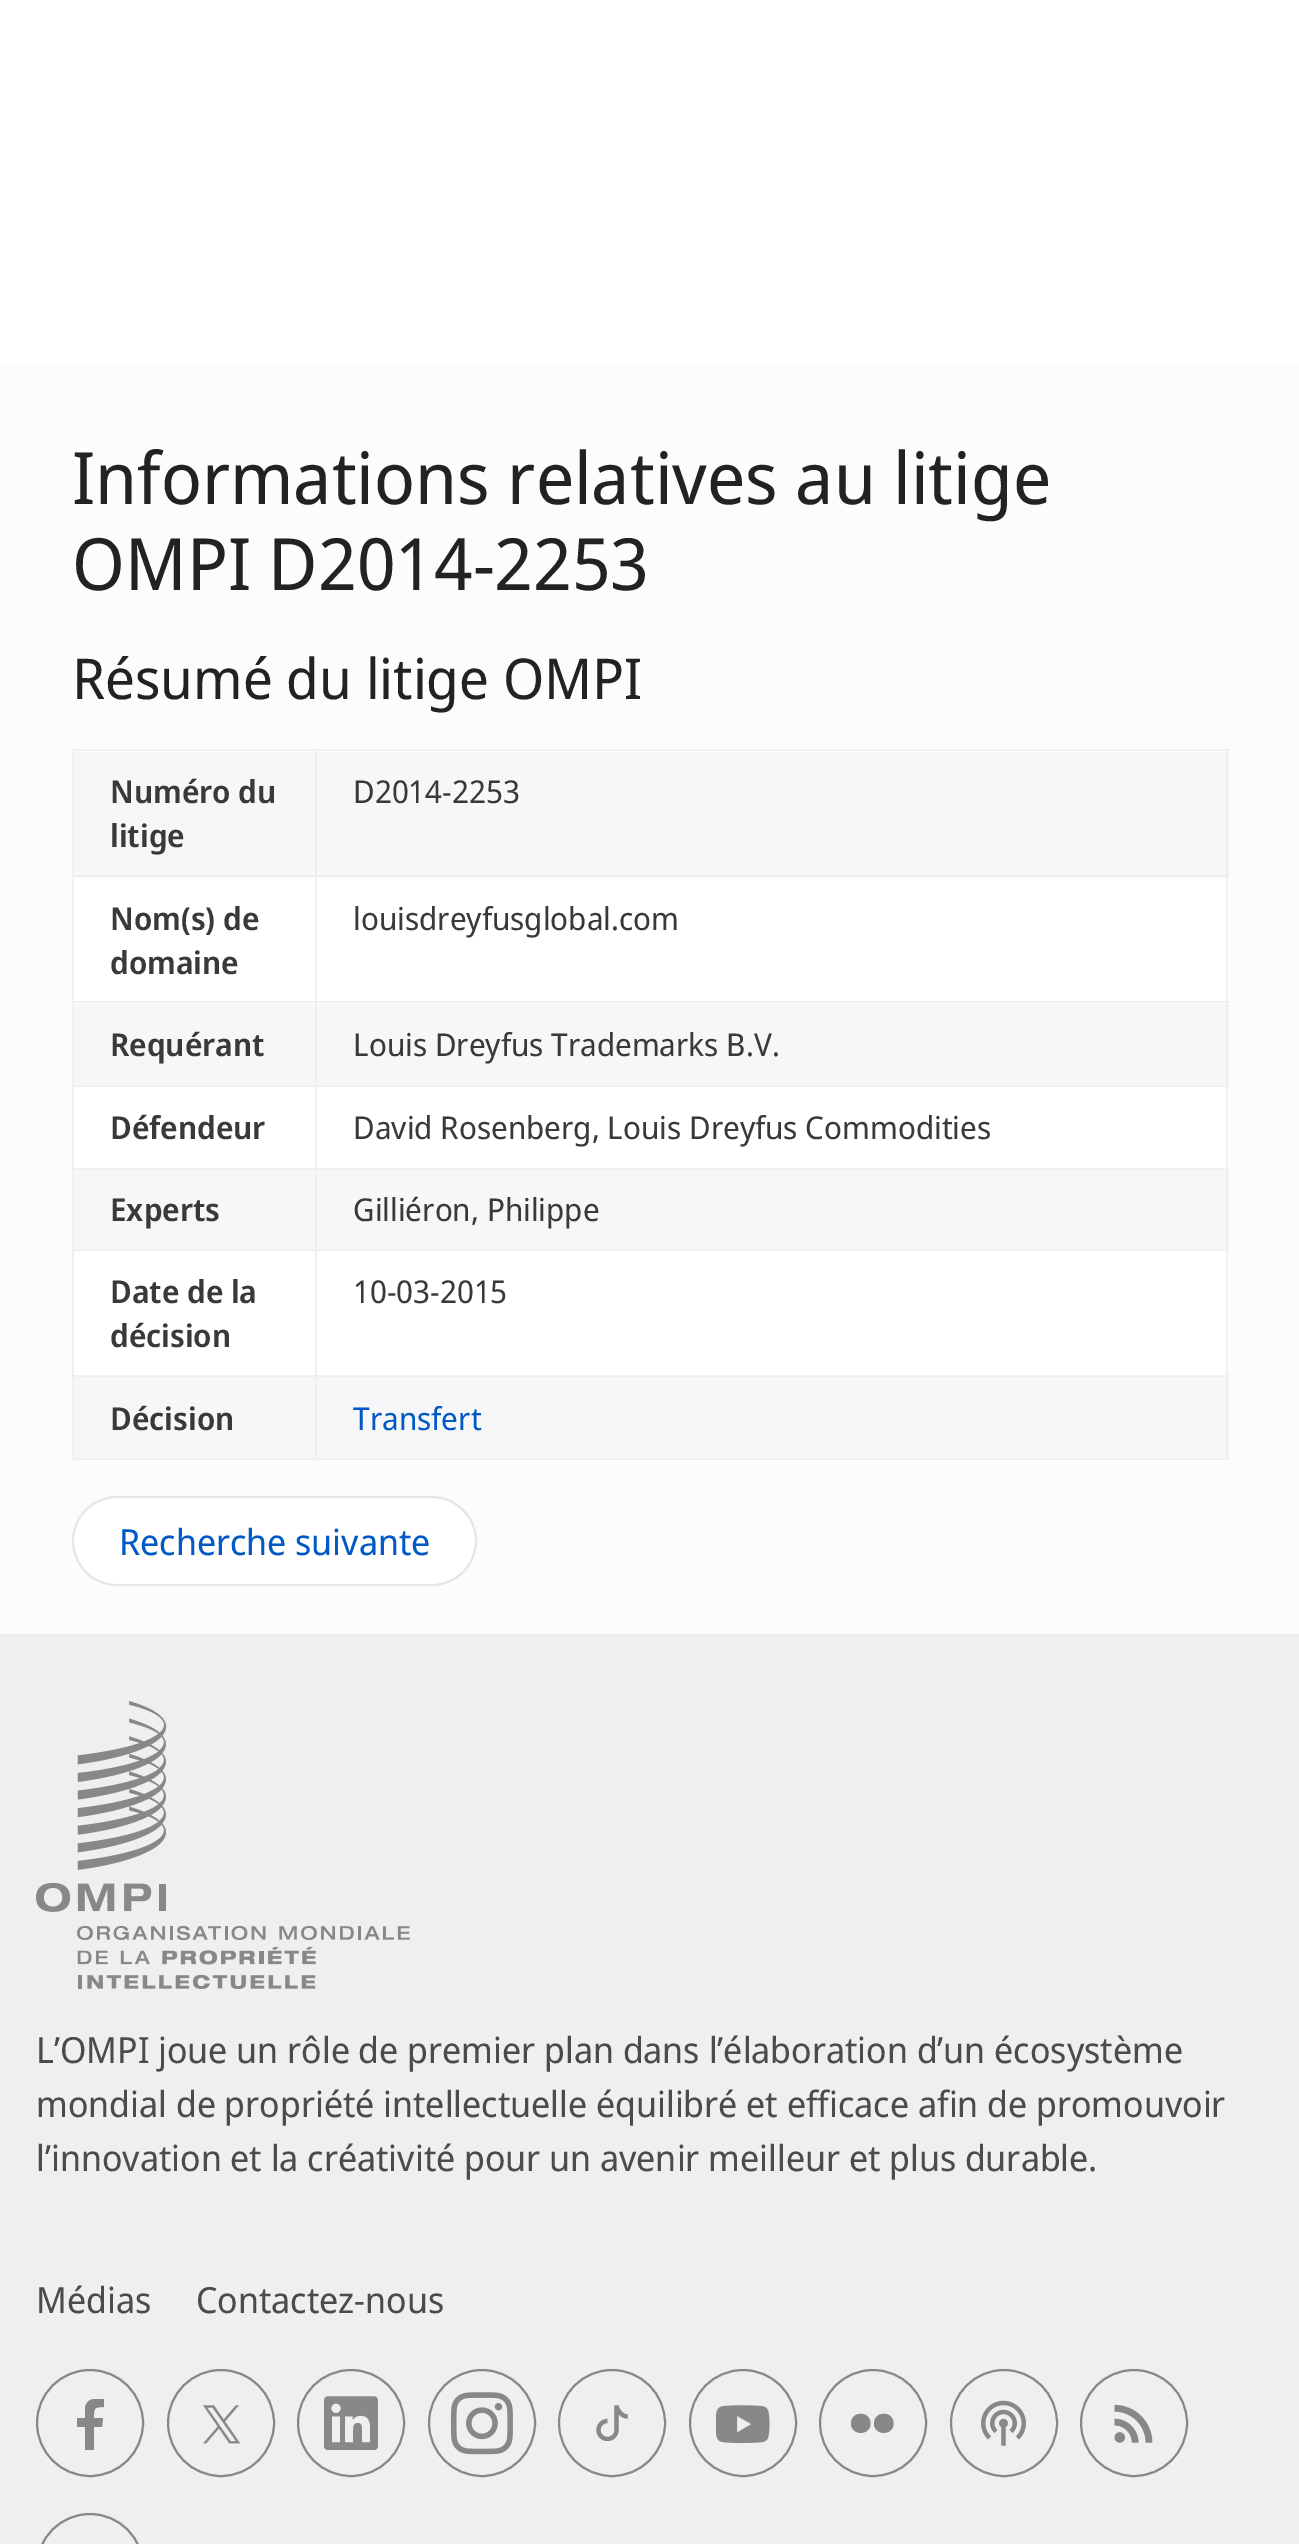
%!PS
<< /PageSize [1299 2544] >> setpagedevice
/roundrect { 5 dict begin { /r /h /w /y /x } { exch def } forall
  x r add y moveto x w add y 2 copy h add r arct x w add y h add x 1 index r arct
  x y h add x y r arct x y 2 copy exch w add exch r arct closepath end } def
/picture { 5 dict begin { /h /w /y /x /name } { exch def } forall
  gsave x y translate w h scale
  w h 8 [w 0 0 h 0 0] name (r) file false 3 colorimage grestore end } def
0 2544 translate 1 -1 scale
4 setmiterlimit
0.988 setgray
0 0 1299 2544 rectfill
1 setgray
0 0 1299 362 rectfill
/NotoSansDisplay-Regular [72 0 0 -72 0 0] selectfont
0.133 setgray
72 504 moveto (Informations relatives au litige) show
72 590 moveto (OMPI D2014-2253) show
/NotoSansDisplay-Regular [56.25 0 0 -56.25 0 0] selectfont
72 699 moveto (Résumé du litige OMPI) show
1 setgray
74 751 1155 624 rectfill
0.941 setgray
72 749 1157 2 rectfill
0.969 0.969 0.98 setrgbcolor
317 752 912 126 rectfill
317 1004 912 81 rectfill
317 1170 912 79 rectfill
317 1377 912 81 rectfill
0.941 setgray
1226 749 2 711 rectfill
72 1458 1157 2 rectfill
72 749 2 711 rectfill
0.969 0.969 0.98 setrgbcolor
74 752 241 126 rectfill
/NotoSansDisplay-SemiBold [31.5 0 0 -31.5 0 0] selectfont
0.224 setgray
110 803 moveto (Numéro du) show
110 847 moveto (litige) show
/NotoSansDisplay-Regular [31.5 0 0 -31.5 0 0] selectfont
353 803 moveto (D2014-2253) show
0.941 setgray
72 875 1157 2 rectfill
72 1001 1157 2 rectfill
72 1085 1157 2 rectfill
72 1168 1157 2 rectfill
72 1249 1157 2 rectfill
72 1375 1157 2 rectfill
315 1375 2 85 rectfill
315 1249 2 128 rectfill
315 1168 2 83 rectfill
315 1085 2 85 rectfill
315 1001 2 86 rectfill
315 749 2 255 rectfill
/NotoSansDisplay-SemiBold [31.5 0 0 -31.5 0 0] selectfont
0.224 setgray
110 930 moveto (Nom\(s\) de) show
110 974 moveto (domaine) show
/NotoSansDisplay-Regular [31.5 0 0 -31.5 0 0] selectfont
353 930 moveto (louisdreyfusglobal.com) show
0.969 0.969 0.98 setrgbcolor
74 1004 241 81 rectfill
/NotoSansDisplay-SemiBold [31.5 0 0 -31.5 0 0] selectfont
0.224 setgray
110 1056 moveto (Requérant) show
/NotoSansDisplay-Regular [31.5 0 0 -31.5 0 0] selectfont
353 1056 moveto (Louis Dreyfus Trademarks B.V.) show
/NotoSansDisplay-SemiBold [31.5 0 0 -31.5 0 0] selectfont
110 1139 moveto (Défendeur) show
/NotoSansDisplay-Regular [31.5 0 0 -31.5 0 0] selectfont
353 1139 moveto (David Rosenberg, Louis Dreyfus Commodities) show
0.969 0.969 0.98 setrgbcolor
74 1170 241 79 rectfill
/NotoSansDisplay-SemiBold [31.5 0 0 -31.5 0 0] selectfont
0.224 setgray
110 1221 moveto (Experts) show
/NotoSansDisplay-Regular [31.5 0 0 -31.5 0 0] selectfont
353 1221 moveto (Gilliéron, Philippe) show
/NotoSansDisplay-SemiBold [31.5 0 0 -31.5 0 0] selectfont
110 1303 moveto (Date de la) show
110 1347 moveto (décision) show
/NotoSansDisplay-Regular [31.5 0 0 -31.5 0 0] selectfont
353 1303 moveto (10-03-2015) show
0.969 0.969 0.98 setrgbcolor
74 1377 241 81 rectfill
/NotoSansDisplay-SemiBold [31.5 0 0 -31.5 0 0] selectfont
0.224 setgray
110 1430 moveto (Décision) show
/NotoSansDisplay-Regular [31.5 0 0 -31.5 0 0] selectfont
0 0.349 0.776 setrgbcolor
353 1430 moveto (Transfert) show
1 setgray
73 1497 403 88 44 roundrect gsave fill grestore
0.902 setgray
2 setlinewidth
stroke
/NotoSansDisplay-Regular [36 0 0 -36 0 0] selectfont
0 0.349 0.776 setrgbcolor
119 1555 moveto (Recherche suivante) show
0.937 setgray
0 1634 1299 910 rectfill
(img1.rgb) 36 1701 374 288 picture
0.294 setgray
36 2063 moveto (L’OMPI joue un rôle de premier plan dans l’élaboration d’un écosystème) show
36 2117 moveto (mondial de propriété intellectuelle équilibré et efficace afin de promouvoir) show
36 2171 moveto (l’innovation et la créativité pour un avenir meilleur et plus durable.) show
36 2313 moveto (Médias) show
196 2313 moveto (Contactez-nous) show
0.533 setgray
newpath 90 2423 53 0 360 arc closepath stroke
gsave
77 2399 27 51 rectclip
newpath 102 2427 moveto 103 2418 lineto 94 2418 lineto 94 2409 93 2407 104 2407 curveto 104 2399 lineto 96 2398 86 2398 85 2408 curveto 85 2418 lineto 76 2418 lineto 76 2427 lineto 85 2427 lineto 85 2450 lineto 88 2450 91 2450 94 2450 curveto 94 2427 lineto closepath fill
grestore
newpath 221 2423 53 0 360 arc closepath stroke
(img2.rgb) 203 2405 38 39 picture
newpath 351 2423 53 0 360 arc closepath stroke
(img3.rgb) 324 2396 54 54 picture
newpath 482 2423 53 0 360 arc closepath stroke
(img4.rgb) 450 2392 63 63 picture
newpath 612 2423 53 0 360 arc closepath stroke
(img5.rgb) 596 2405 32 36 picture
newpath 743 2423 53 0 360 arc closepath stroke
(img6.rgb) 716 2405 54 39 picture
newpath 873 2423 53 0 360 arc closepath stroke
newpath 870.5 2423.5 moveto 870.5 2436 851 2436 851 2423.5 curveto 851 2410.5 870.5 2410.5 870.5 2423.5 curveto closepath 893.5 2423.5 moveto 893.5 2436 874 2436 874 2423.5 curveto 874 2410.5 893.5 2410.5 893.5 2423.5 curveto closepath fill
newpath 1004 2423 53 0 360 arc closepath stroke
(img7.rgb) 981 2400 45 46 picture
newpath 1134 2423 53 0 360 arc closepath stroke
(img8.rgb) 1114 2404 39 39 picture
37 2514 106 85 53 roundrect stroke
showpage
